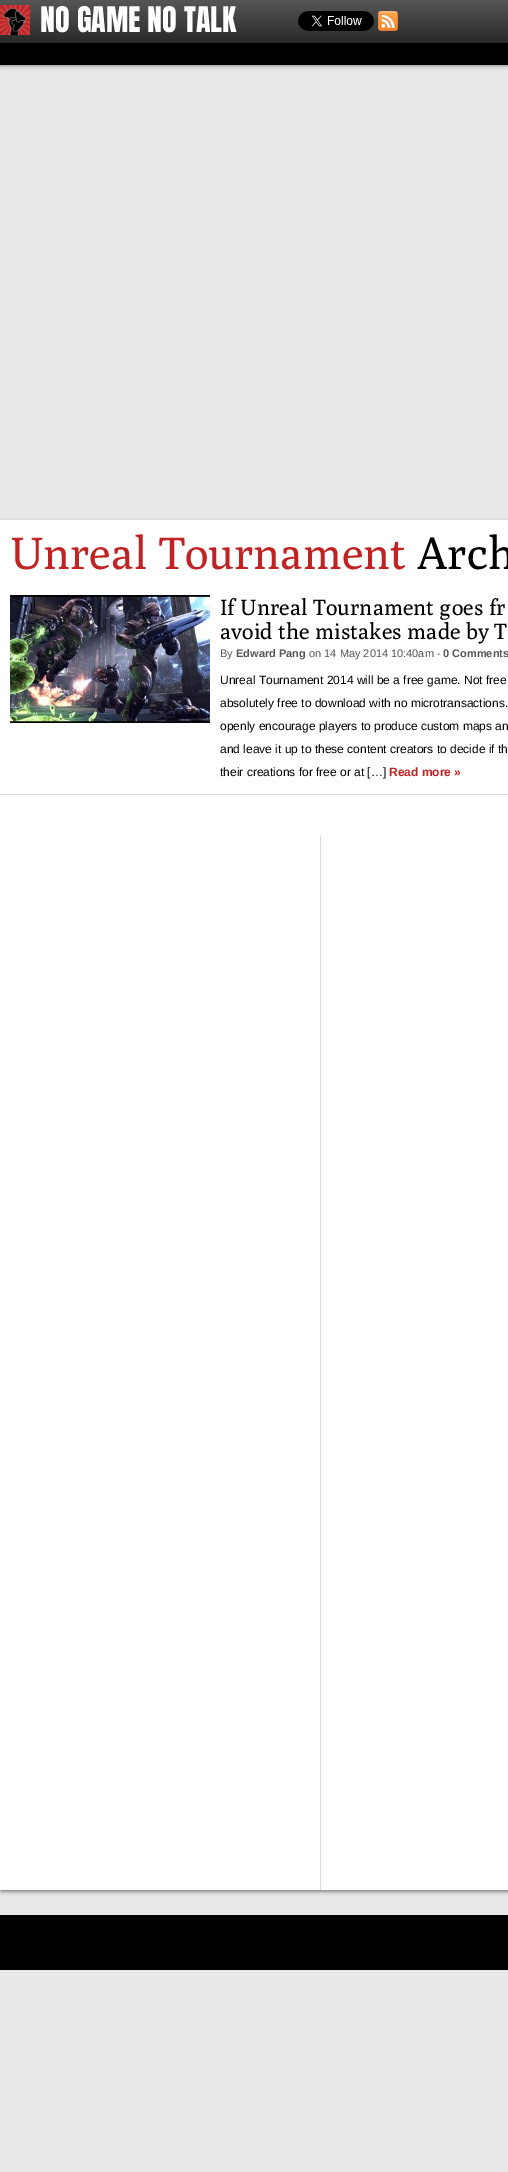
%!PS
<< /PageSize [508 2172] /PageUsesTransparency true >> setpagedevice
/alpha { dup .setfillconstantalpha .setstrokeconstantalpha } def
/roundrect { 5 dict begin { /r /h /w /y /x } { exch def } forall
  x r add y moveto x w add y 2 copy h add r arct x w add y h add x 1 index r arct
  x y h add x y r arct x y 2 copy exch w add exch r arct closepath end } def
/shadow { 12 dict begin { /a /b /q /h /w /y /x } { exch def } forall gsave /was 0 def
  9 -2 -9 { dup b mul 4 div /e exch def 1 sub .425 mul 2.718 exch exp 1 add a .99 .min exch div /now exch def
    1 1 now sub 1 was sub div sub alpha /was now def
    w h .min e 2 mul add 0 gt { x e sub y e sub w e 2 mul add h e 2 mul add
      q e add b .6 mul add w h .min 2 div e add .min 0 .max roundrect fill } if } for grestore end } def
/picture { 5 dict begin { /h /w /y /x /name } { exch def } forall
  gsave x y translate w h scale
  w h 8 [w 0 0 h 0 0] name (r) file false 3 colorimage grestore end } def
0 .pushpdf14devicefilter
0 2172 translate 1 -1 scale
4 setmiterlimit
0.91 setgray
0 0 508 2172 rectfill
0.4 setgray
0 0 508 65 0 2.5 1 shadow
gsave newpath 0 0 moveto 508 0 lineto 508 43 lineto 0 43 lineto closepath clip newpath
<< /ShadingType 2 /ColorSpace /DeviceRGB /Coords [0 0 0 43] /Extend [true true] /Function << /FunctionType 2 /Domain [0 1] /C0 [0.337 0.337 0.337] /C1 [0.161 0.161 0.161] /N 1 >> >> shfill grestore
(img1.rgb) 0 5 30 30 picture
/Anton-Regular [30 0 0 -30 0 0] selectfont
1 setgray
40 32 moveto (NO GAME NO TALK) show
(img2.rgb) 298 11 76 20 picture
(img3.rgb) 378 11 20 20 picture
0 setgray
0 43 508 22 rectfill
0.4 setgray
1 523 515 1368 0 2.5 1 shadow
1 setgray
0 835 508 1055 rectfill
0.867 setgray
320 835 1 1055 rectfill
1 setgray
0 520 508 315 rectfill
/Poly-Regular [45 0 0 -45 0 0] selectfont
0.749 0.137 0.141 setrgbcolor
10 569 moveto (Unreal Tournament) show
0 setgray
417 569 moveto (Arch) show
0.867 setgray
0 794 508 1 rectfill
(img4.rgb) 10 595 200 128 picture
/Poly-Regular [22 0 0 -22 0 0] selectfont
0 setgray
220 615 moveto (If Unreal Tournament goes fr) show
220 639 moveto (avoid the mistakes made by T) show
/LiberationSans-Regular [11 0 0 -11 0 0] selectfont
0.333 setgray
220 657 moveto (By) show
/LiberationSans-Bold [11 0 0 -11 0 0] selectfont
236 657 moveto (Edward Pang) show
/LiberationSans-Regular [11 0 0 -11 0 0] selectfont
309 657 moveto (on 14 May 2014 10:40am -) show
/LiberationSans-Bold [11 0 0 -11 0 0] selectfont
443 657 moveto (0 Comments) show
/LiberationSans-Regular [12 0 0 -12 0 0] selectfont
0 setgray
220 684 moveto (Unreal Tournament 2014 will be a free game. Not free) show
220 707 moveto (absolutely free to download with no microtransactions.) show
220 730 moveto (openly encourage players to produce custom maps an) show
220 753 moveto (and leave it up to these content creators to decide if th) show
220 776 moveto (their creations for free or at […]) show
/LiberationSans-Bold [12 0 0 -12 0 0] selectfont
0.749 0.137 0.141 setrgbcolor
389 776 moveto (Read more ») show
0 setgray
0 1915 508 55 rectfill
.poppdf14devicefilter showpage
